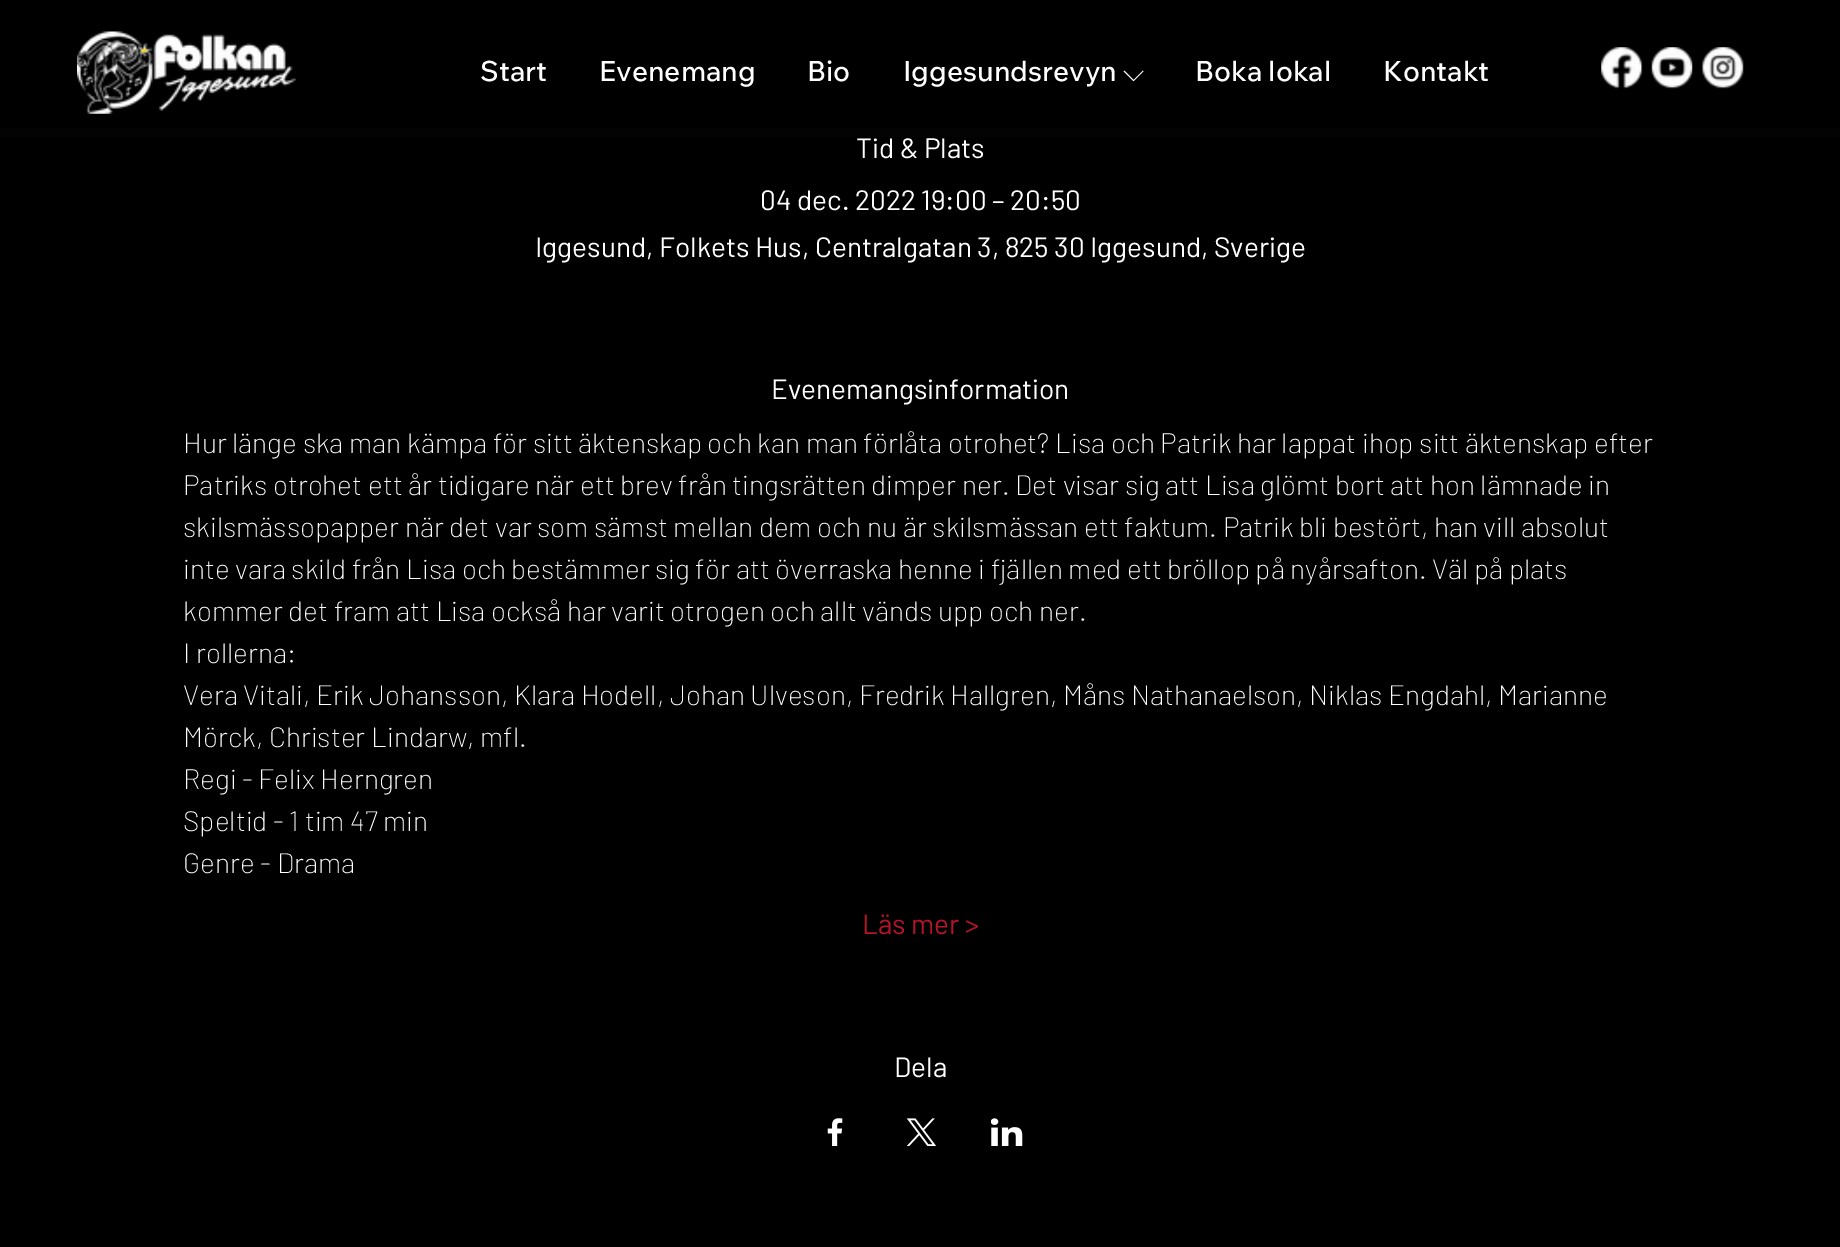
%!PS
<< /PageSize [1840 1247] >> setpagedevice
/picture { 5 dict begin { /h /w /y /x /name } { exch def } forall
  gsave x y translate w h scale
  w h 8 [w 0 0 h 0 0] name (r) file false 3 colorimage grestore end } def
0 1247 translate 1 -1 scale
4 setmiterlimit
0 setgray
0 0 1840 1247 rectfill
(img1.rgb) 77 31 219 83 picture
/WixMadeforText-Medium [28 0 0 -28 0 0] selectfont
1 setgray
480 81 moveto (Start) show
599 81 moveto (Evenemang) show
807 81 moveto (Bio) show
903 81 moveto (Iggesundsrevyn) show
/FreeSerif-Regular [28 0 0 -28 0 0] selectfont
1123 81 moveto (⌵) show
/WixMadeforText-Medium [28 0 0 -28 0 0] selectfont
1195 81 moveto (Boka lokal) show
1383 81 moveto (Kontakt) show
(img2.rgb) 1601 47 42 42 picture
(img3.rgb) 1651 47 42 42 picture
(img4.rgb) 1702 47 42 42 picture
0.012 setgray
0 128 1840 9 rectfill
/Barlow-Regular [28 0 0 -28 0 0] selectfont
1 setgray
856 158 moveto (Tid & Plats) show
760 210 moveto (04 dec. 2022 19:00 – 20:50) show
535 257 moveto (Iggesund, Folkets Hus, Centralgatan 3, 825 30 Iggesund, Sverige) show
771 399 moveto (Evenemangsinformation) show
/Barlow-ExtraLight [28 0 0 -28 0 0] selectfont
183 453 moveto (Hur länge ska man kämpa för sitt äktenskap och kan man förlåta otrohet? Lisa och Patrik har lappat ihop sitt äktenskap efter) show
183 495 moveto (Patriks otrohet ett år tidigare när ett brev från tingsrätten dimper ner. Det visar sig att Lisa glömt bort att hon lämnade in) show
183 537 moveto (skilsmässopapper när det var som sämst mellan dem och nu är skilsmässan ett faktum. Patrik bli bestört, han vill absolut) show
183 579 moveto (inte vara skild från Lisa och bestämmer sig för att överraska henne i fjällen med ett bröllop på nyårsafton. Väl på plats) show
183 621 moveto (kommer det fram att Lisa också har varit otrogen och allt vänds upp och ner.) show
183 663 moveto (I rollerna:) show
183 705 moveto (Vera Vitali, Erik Johansson, Klara Hodell, Johan Ulveson, Fredrik Hallgren, Måns Nathanaelson, Niklas Engdahl, Marianne) show
183 747 moveto (Mörck, Christer Lindarw, mfl.) show
183 789 moveto (Regi - Felix Herngren) show
183 831 moveto (Speltid - 1 tim 47 min) show
183 873 moveto (Genre - Drama) show
/Barlow-Regular [28 0 0 -28 0 0] selectfont
0.71 0.078 0.161 setrgbcolor
862 934 moveto (Läs mer >) show
1 setgray
894 1077 moveto (Dela) show
(img5.rgb) 827 1118 16 28 picture
(img6.rgb) 906 1118 31 28 picture
(img7.rgb) 991 1118 32 28 picture
showpage
